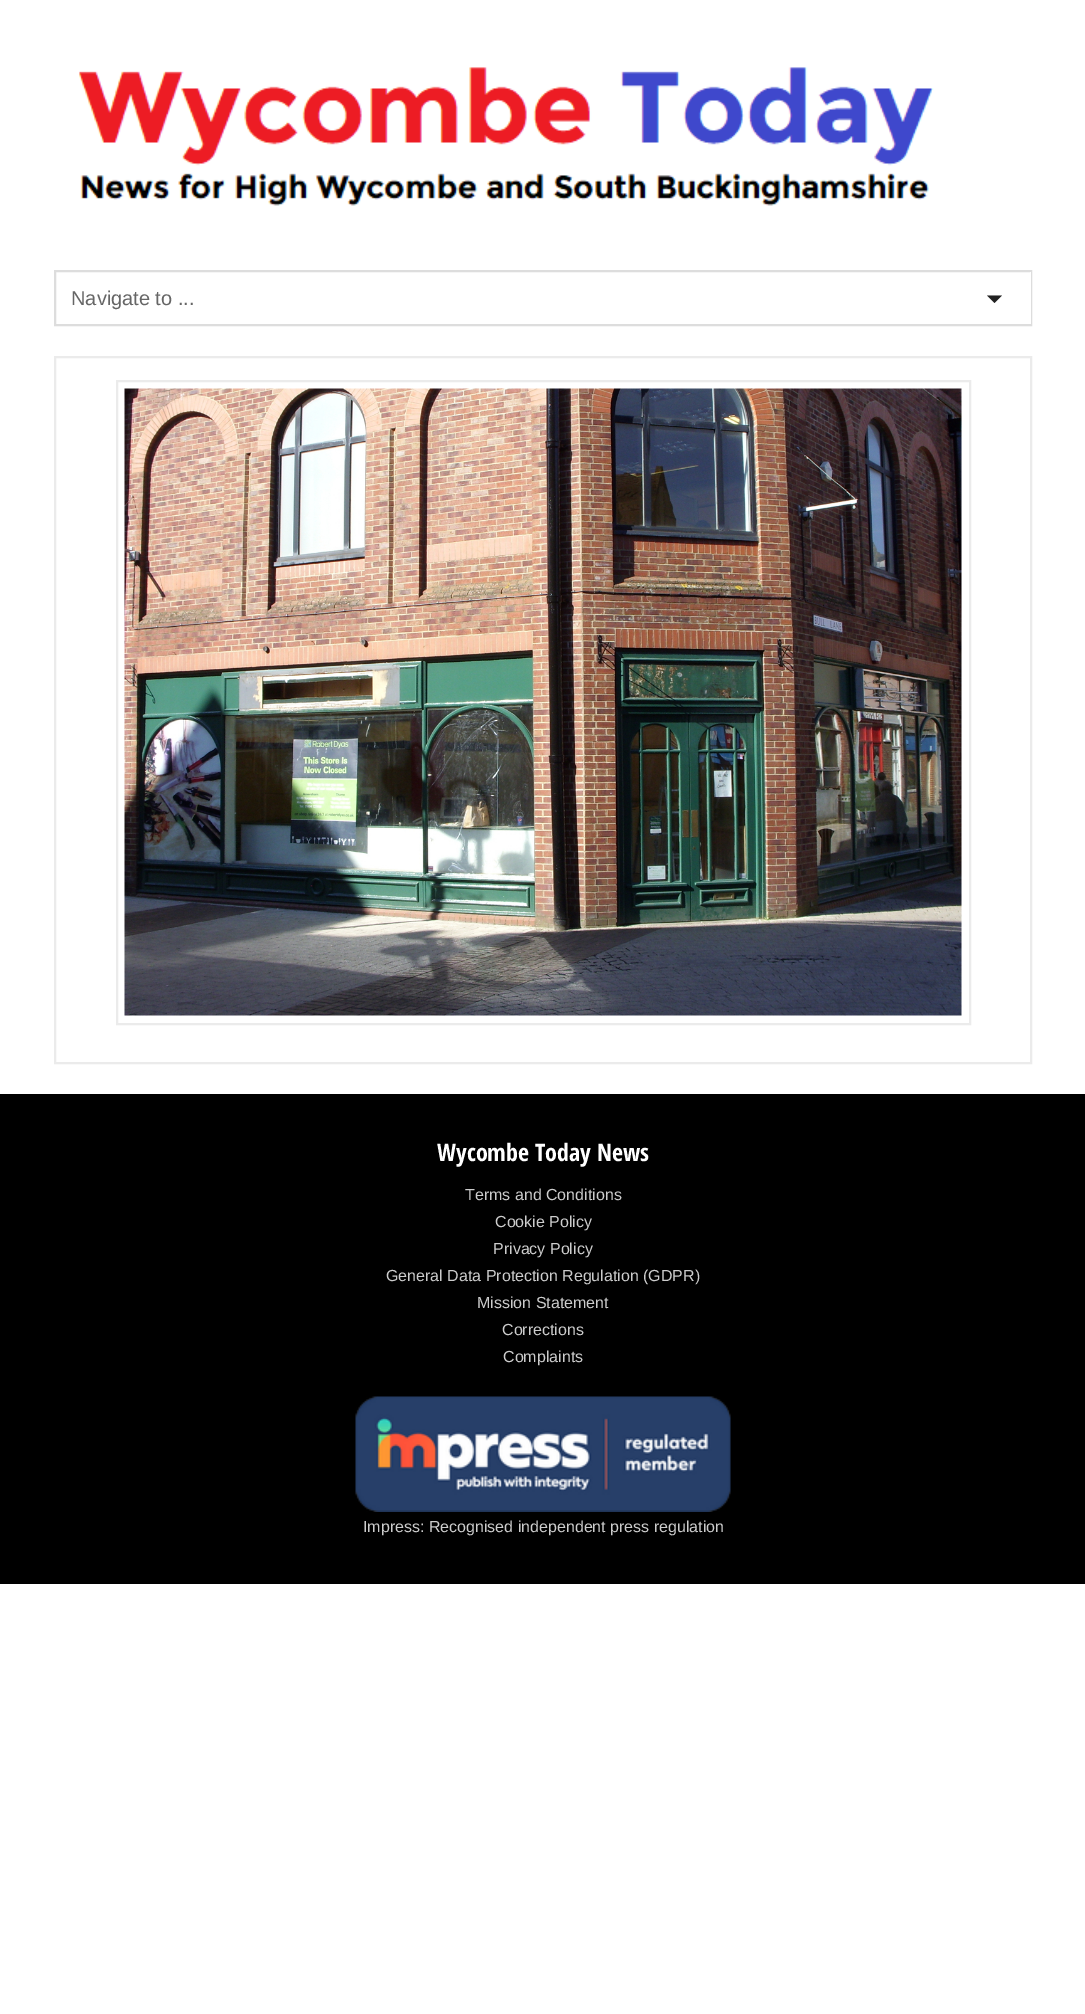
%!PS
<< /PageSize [1085 2014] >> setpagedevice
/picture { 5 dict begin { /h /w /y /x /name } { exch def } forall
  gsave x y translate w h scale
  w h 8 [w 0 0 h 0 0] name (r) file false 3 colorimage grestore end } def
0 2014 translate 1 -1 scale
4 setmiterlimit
1 setgray
0 0 1085 2014 rectfill
(img1.rgb) 79 67 855 139 picture
0.867 setgray
2 setlinewidth
55 271 976 54 rectstroke
/LiberationSans-Regular [20 0 0 -20 0 0] selectfont
0.4 setgray
71 305 moveto (Navigate to ...) show
0.133 setgray
newpath 987 295.5 moveto 1002 295.5 lineto 994.5 303 lineto closepath fill
1 setgray
1030 272 1 52 rectfill
0.922 setgray
55 357 976 706 rectstroke
117 381 853 643 rectstroke
(img2.rgb) 124 388 838 628 picture
0 setgray
0 1094 1085 490 rectfill
/OpenSansCondensed-Bold [24 0 0 -24 0 0] selectfont
1 setgray
437 1161 moveto (Wycombe Today News) show
/LiberationSans-Regular [16 0 0 -16 0 0] selectfont
0.8 setgray
465 1200 moveto (Terms and Conditions) show
495 1227 moveto (Cookie Policy) show
493 1254 moveto (Privacy Policy) show
386 1281 moveto (General Data Protection Regulation \(GDPR\)) show
477 1308 moveto (Mission Statement) show
502 1335 moveto (Corrections) show
503 1362 moveto (Complaints) show
(img3.rgb) 355 1396 376 116 picture
363 1532 moveto (Impress: Recognised independent press regulation) show
showpage
